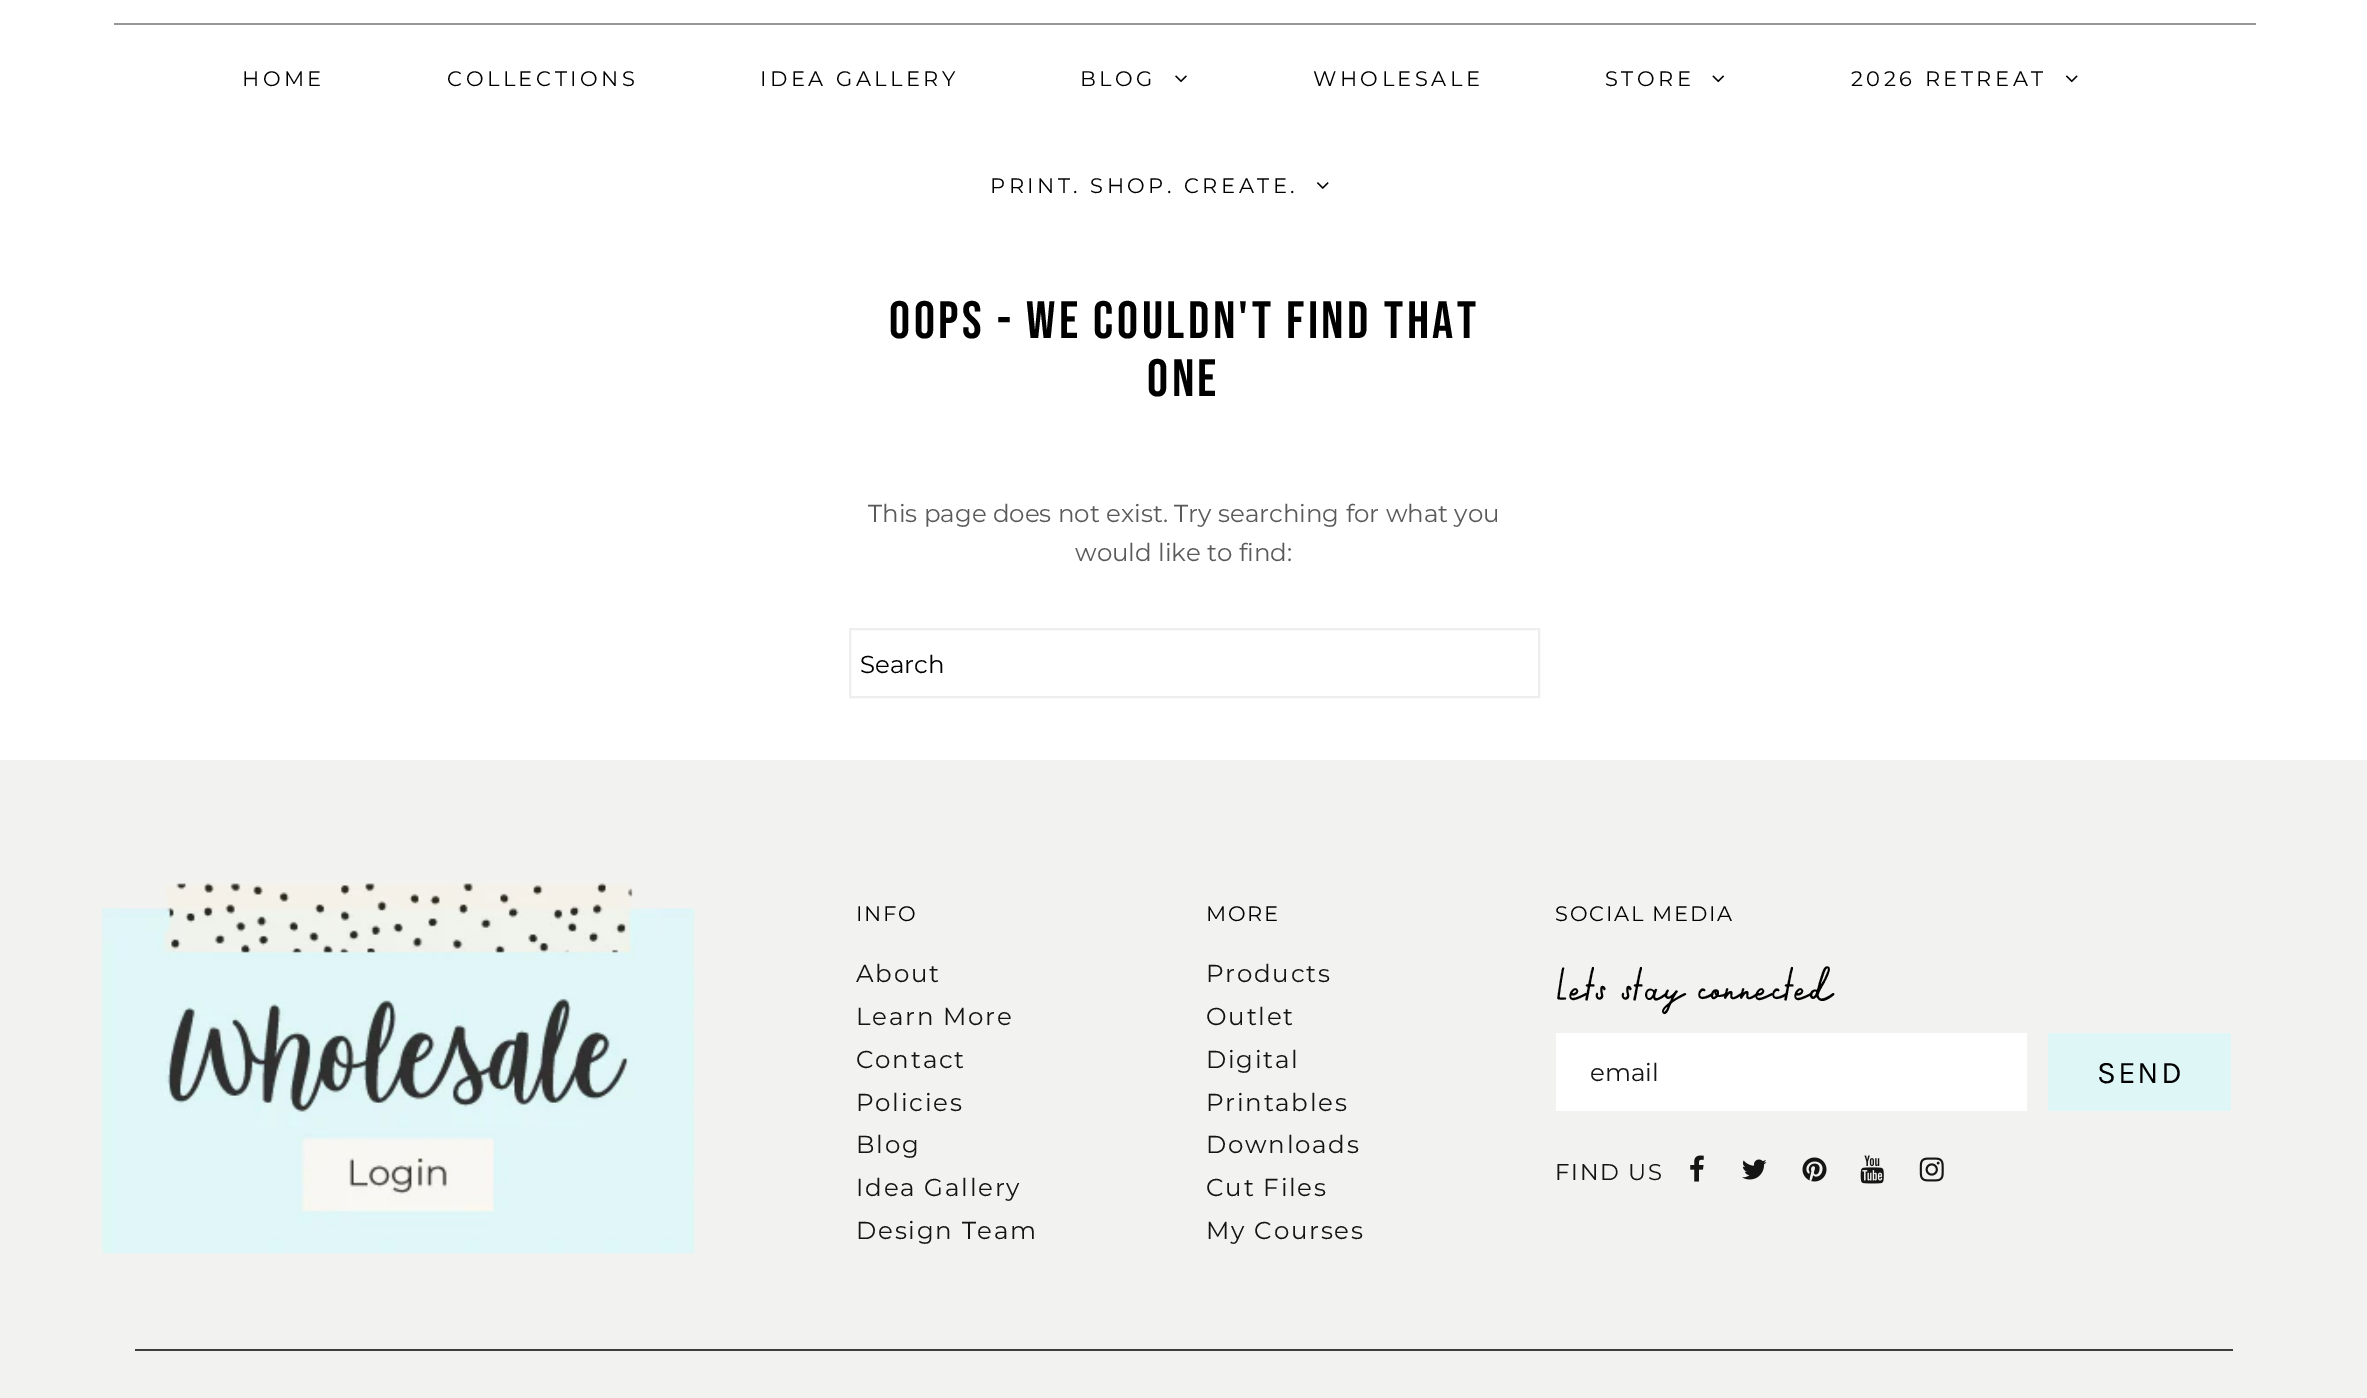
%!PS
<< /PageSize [2367 1398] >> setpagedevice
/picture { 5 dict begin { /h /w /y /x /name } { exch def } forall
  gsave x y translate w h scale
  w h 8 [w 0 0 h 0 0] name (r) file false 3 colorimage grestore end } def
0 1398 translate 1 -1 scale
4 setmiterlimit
1 setgray
0 0 2367 1398 rectfill
0.6 0.588 0.588 setrgbcolor
114 23 2142 2 rectfill
/Montserrat-Regular [21 0 0 -21 0 0] selectfont
0 setgray
242 86 moveto 3.5 0 (HOME) ashow
447 86 moveto 3.5 0 (COLLECTIONS) ashow
760 86 moveto 3.5 0 (IDEA GALLERY) ashow
1080 86 moveto 3.5 0 (BLOG) ashow
(img1.rgb) 1175 75 12 8 picture
1313 86 moveto 3.5 0 (WHOLESALE) ashow
1605 86 moveto 3.5 0 (STORE) ashow
(img2.rgb) 1712 75 13 8 picture
1851 86 moveto 3.5 0 (2026 RETREAT) ashow
(img3.rgb) 2065 75 13 8 picture
990 193 moveto 3.5 0 (PRINT. SHOP. CREATE.) ashow
(img4.rgb) 1317 182 12 7 picture
/BebasNeue-Regular [52.5 0 0 -52.5 0 0] selectfont
889 338 moveto 3.5 0 (Oops - We couldn't find that) ashow
1147 396 moveto 3.5 0 (one) ashow
/Montserrat-Regular [24.5 0 0 -24.5 0 0] selectfont
0.353 setgray
868 522 moveto (This page does not exist. Try searching for what you) show
1075 561 moveto (would like to find:) show
0.933 setgray
2 setlinewidth
850 629 689 68 rectstroke
0 setgray
860 673 moveto (Search) show
0.949 0.949 0.941 setrgbcolor
0 760 2367 638 rectfill
0.243 setgray
135 1349 2098 2 rectfill
(img5.rgb) 101 883 594 371 picture
/Montserrat-Regular [21 0 0 -21 0 0] selectfont
0 setgray
856 921 moveto 1.75 0 (INFO) ashow
/Montserrat-Regular [24.5 0 0 -24.5 0 0] selectfont
0.082 setgray
856 982 moveto 1.75 0 (About) ashow
856 1025 moveto 1.75 0 (Learn More) ashow
856 1068 moveto 1.75 0 (Contact) ashow
856 1111 moveto 1.75 0 (Policies) ashow
856 1153 moveto 1.75 0 (Blog) ashow
856 1196 moveto 1.75 0 (Idea Gallery) ashow
856 1239 moveto 1.75 0 (Design Team) ashow
/Montserrat-Regular [21 0 0 -21 0 0] selectfont
0 setgray
1206 921 moveto 1.75 0 (MORE) ashow
/Montserrat-Regular [24.5 0 0 -24.5 0 0] selectfont
0.082 setgray
1206 982 moveto 1.75 0 (Products) ashow
1206 1025 moveto 1.75 0 (Outlet) ashow
1206 1068 moveto 1.75 0 (Digital) ashow
1206 1111 moveto 1.75 0 (Printables) ashow
1206 1153 moveto 1.75 0 (Downloads) ashow
1206 1196 moveto 1.75 0 (Cut Files) ashow
1206 1239 moveto 1.75 0 (My Courses) ashow
/Montserrat-Regular [21 0 0 -21 0 0] selectfont
0 setgray
1555 921 moveto 1.75 0 (SOCIAL MEDIA) ashow
/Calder-Regular [45.5 0 0 -45.5 0 0] selectfont
1555 1000 moveto (Lets stay connected) show
1 setgray
1556 1033 471 78 rectfill
/Montserrat-Regular [24.5 0 0 -24.5 0 0] selectfont
0.082 setgray
1590 1081 moveto (email) show
0.875 0.965 0.969 setrgbcolor
2048 1033 183 78 rectfill
/Karla-Regular [31.5 0 0 -31.5 0 0] selectfont
0 setgray
2097 1083 moveto 1.75 0 (SEND) ashow
/Montserrat-Regular [22.75 0 0 -22.75 0 0] selectfont
0.082 setgray
1555 1180 moveto 1.75 0 (FIND US) ashow
(img6.rgb) 1690 1155 14 27 picture
(img7.rgb) 1742 1159 25 21 picture
(img8.rgb) 1802 1157 25 25 picture
(img9.rgb) 1860 1155 24 29 picture
(img10.rgb) 1919 1157 25 25 picture
showpage
